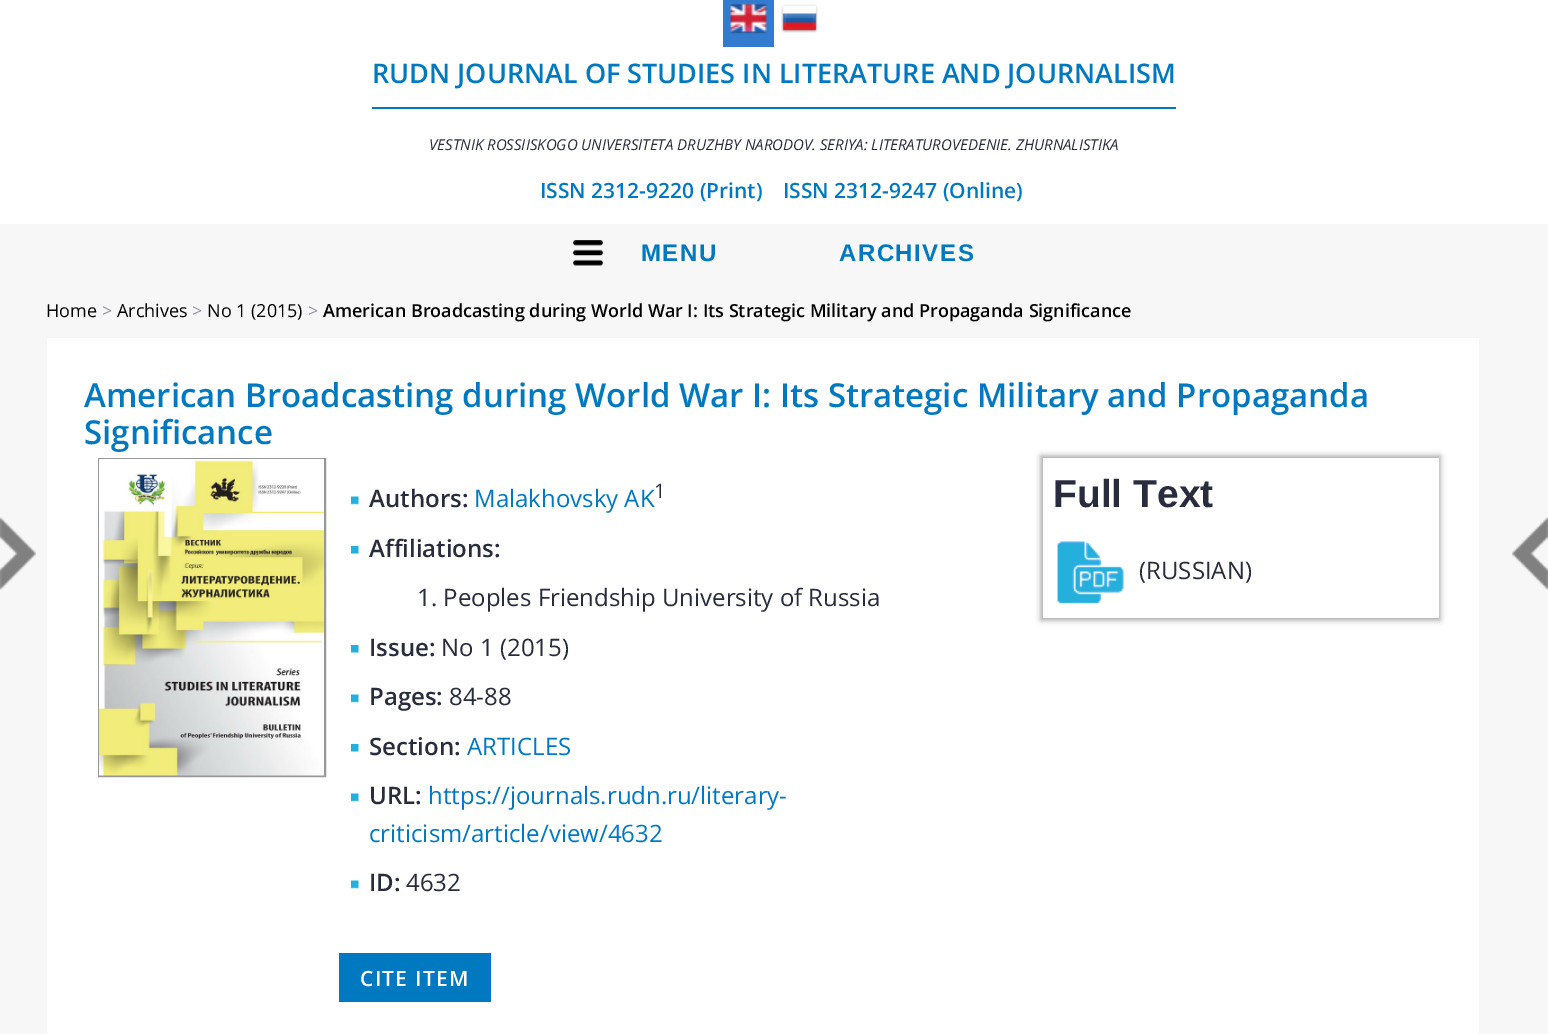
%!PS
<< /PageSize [1548 1034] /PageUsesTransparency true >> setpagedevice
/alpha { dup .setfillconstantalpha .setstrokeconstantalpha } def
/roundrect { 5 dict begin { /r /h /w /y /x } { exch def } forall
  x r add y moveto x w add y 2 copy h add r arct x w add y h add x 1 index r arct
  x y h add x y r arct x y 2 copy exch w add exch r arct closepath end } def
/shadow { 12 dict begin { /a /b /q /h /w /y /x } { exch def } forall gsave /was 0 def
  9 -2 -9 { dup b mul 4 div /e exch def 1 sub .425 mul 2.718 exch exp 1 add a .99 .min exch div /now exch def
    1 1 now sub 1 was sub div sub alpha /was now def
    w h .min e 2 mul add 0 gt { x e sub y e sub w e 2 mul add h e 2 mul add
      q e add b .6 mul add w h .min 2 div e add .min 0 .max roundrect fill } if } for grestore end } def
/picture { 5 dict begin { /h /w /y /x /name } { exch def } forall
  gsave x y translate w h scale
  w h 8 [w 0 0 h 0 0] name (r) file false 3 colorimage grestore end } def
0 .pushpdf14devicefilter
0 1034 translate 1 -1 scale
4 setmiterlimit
0.969 setgray
0 0 1548 1034 rectfill
1 setgray
0 0 1548 224 rectfill
0.196 0.482 0.812 setrgbcolor
723 0 51 47 rectfill
(img1.rgb) 730 3 37 31 picture
(img2.rgb) 781 4 37 29 picture
/OpenSans-SemiBold [27 0 0 -27 0 0] selectfont
0 0.475 0.757 setrgbcolor
372 83 moveto (RUDN JOURNAL OF STUDIES IN LITERATURE AND JOURNALISM) show
372 107 804 2 rectfill
/OpenSans-Italic [15 0 0 -15 0 0] selectfont
0.161 0.173 0.239 setrgbcolor
429 150 moveto (VESTNIK ROSSIISKOGO UNIVERSITETA DRUZHBY NARODOV. SERIYA: LITERATUROVEDENIE. ZHURNALISTIKA) show
/OpenSans-SemiBold [21 0 0 -21 0 0] selectfont
0 0.475 0.757 setrgbcolor
540 198 moveto (ISSN 2312-9220 \(Print\)) show
783 198 moveto (ISSN 2312-9247 \(Online\)) show
(img3.rgb) 573 240 30 26 picture
/LiberationSans-Bold [24 0 0 -24 0 0] selectfont
641 261 moveto 1.5 0 (MENU) ashow
839 261 moveto 1.5 0 (ARCHIVES) ashow
/OpenSans-Regular [18 0 0 -18 0 0] selectfont
0.004 setgray
46 317 moveto (Home) show
0.565 0.576 0.62 setrgbcolor
102 317 moveto (>) show
0.004 setgray
117 317 moveto (Archives) show
0.565 0.576 0.62 setrgbcolor
192 317 moveto (>) show
0.004 setgray
207 317 moveto (No 1 \(2015\)) show
0.565 0.576 0.62 setrgbcolor
308 317 moveto (>) show
/OpenSans-SemiBold [18 0 0 -18 0 0] selectfont
0.004 setgray
323 317 moveto (American Broadcasting during World War I: Its Strategic Military and Propaganda Significance) show
1 setgray
47 338 1432 696 rectfill
/OpenSans-SemiBold [33 0 0 -33 0 0] selectfont
0 0.475 0.757 setrgbcolor
84 407 moveto (American Broadcasting during World War I: Its Strategic Military and Propaganda) show
84 444 moveto (Significance) show
0.596 setgray
2 setlinewidth
99 459 226 317 rectstroke
(img4.rgb) 99 459 225 317 picture
(img5.rgb) 351 496 8 10 picture
/OpenSans-SemiBold [24 0 0 -24 0 0] selectfont
0.161 0.173 0.239 setrgbcolor
369 507 moveto (Authors:) show
/OpenSans-Regular [24 0 0 -24 0 0] selectfont
0 0.475 0.757 setrgbcolor
474 507 moveto (Malakhovsky AK) show
/OpenSans-Regular [20 0 0 -20 0 0] selectfont
0.161 0.173 0.239 setrgbcolor
654 498 moveto (1) show
(img6.rgb) 351 546 8 9 picture
/OpenSans-SemiBold [24 0 0 -24 0 0] selectfont
369 557 moveto (Affiliations:) show
/OpenSans-Regular [24 0 0 -24 0 0] selectfont
417 606 moveto (1. Peoples Friendship University of Russia) show
(img6.rgb) 351 645 8 9 picture
/OpenSans-SemiBold [24 0 0 -24 0 0] selectfont
369 656 moveto (Issue:) show
/OpenSans-Regular [24 0 0 -24 0 0] selectfont
441 656 moveto (No 1 \(2015\)) show
(img5.rgb) 351 694 8 10 picture
/OpenSans-SemiBold [24 0 0 -24 0 0] selectfont
369 705 moveto (Pages:) show
/OpenSans-Regular [24 0 0 -24 0 0] selectfont
449 705 moveto (84-88) show
(img6.rgb) 351 744 8 9 picture
/OpenSans-SemiBold [24 0 0 -24 0 0] selectfont
369 755 moveto (Section:) show
/OpenSans-Regular [24 0 0 -24 0 0] selectfont
0 0.475 0.757 setrgbcolor
467 755 moveto (ARTICLES) show
(img5.rgb) 351 793 8 10 picture
/OpenSans-SemiBold [24 0 0 -24 0 0] selectfont
0.161 0.173 0.239 setrgbcolor
369 804 moveto (URL:) show
/OpenSans-Regular [24 0 0 -24 0 0] selectfont
0 0.475 0.757 setrgbcolor
428 804 moveto (https://journals.rudn.ru/literary-) show
369 842 moveto (criticism/article/view/4632) show
(img5.rgb) 351 880 8 10 picture
/OpenSans-SemiBold [24 0 0 -24 0 0] selectfont
0.161 0.173 0.239 setrgbcolor
369 891 moveto (ID:) show
/OpenSans-Regular [24 0 0 -24 0 0] selectfont
406 891 moveto (4632) show
0 0.475 0.757 setrgbcolor
339 953 152 49 rectfill
/OpenSans-SemiBold [21 0 0 -21 0 0] selectfont
1 setgray
360 986 moveto 1.25 0 (CITE ITEM) ashow
0.259 setgray
1041 456 399 164 0 3 0.5 shadow
1 setgray
1043 458 396 160 rectfill
/LiberationSans-Bold [39 0 0 -39 0 0] selectfont
0.161 0.173 0.239 setrgbcolor
1053 507 moveto (Full Text) show
(img7.rgb) 1057 541 67 63 picture
/OpenSans-Regular [24 0 0 -24 0 0] selectfont
1139 579 moveto (\(RUSSIAN\)) show
(img8.rgb) 0 517 36 73 picture
(img9.rgb) 1512 517 36 73 picture
.poppdf14devicefilter showpage
